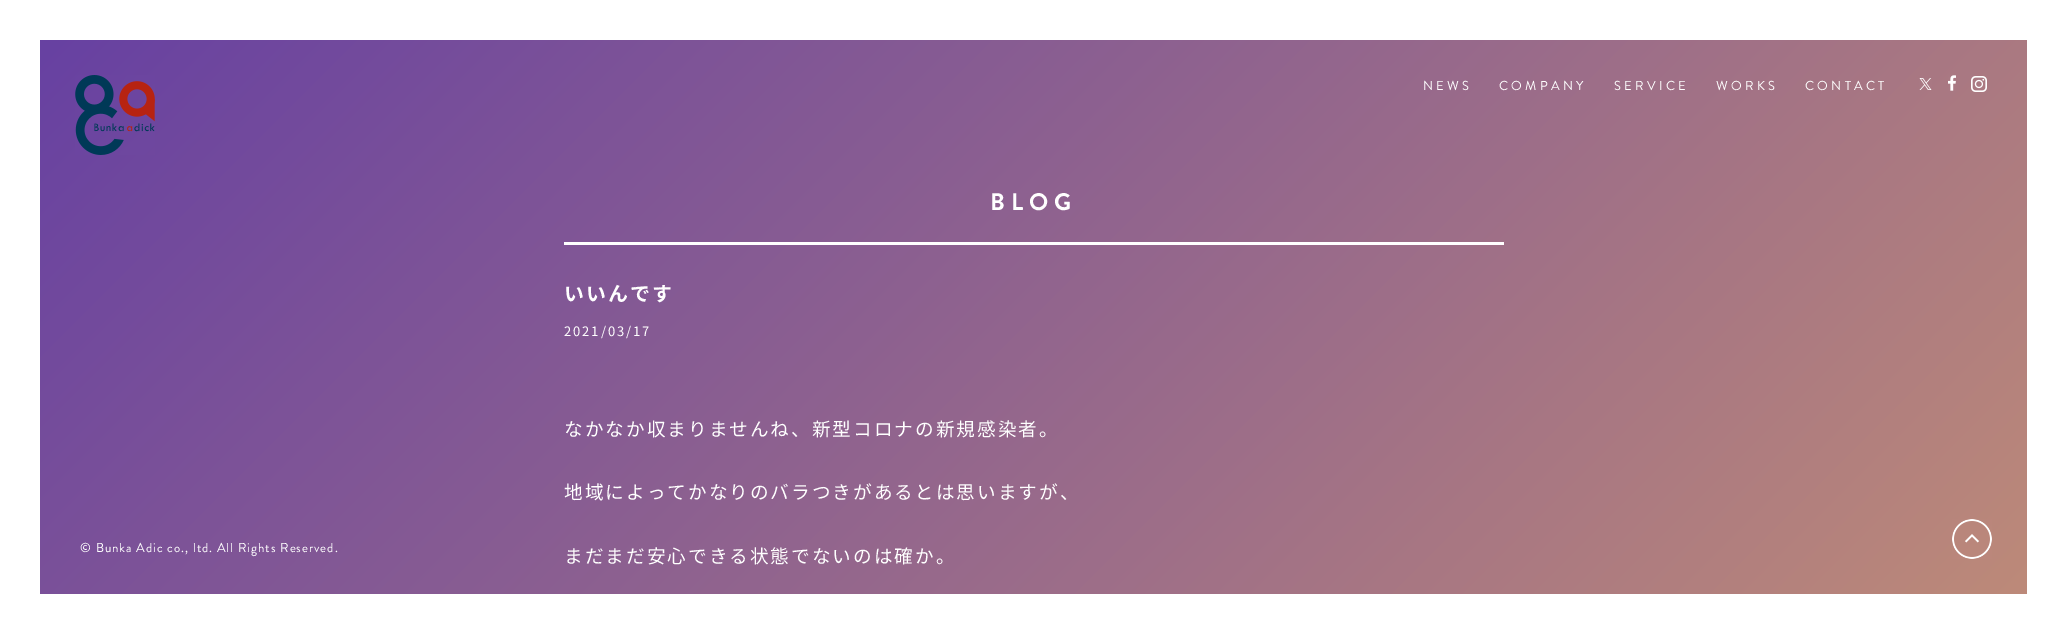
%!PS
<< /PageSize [2067 634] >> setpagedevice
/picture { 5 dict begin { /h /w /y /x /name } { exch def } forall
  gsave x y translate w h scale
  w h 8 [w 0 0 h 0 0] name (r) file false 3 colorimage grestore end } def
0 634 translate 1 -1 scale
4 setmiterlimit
1 setgray
0 0 2067 634 rectfill
gsave newpath 40 40 moveto 2027 40 lineto 2027 594 lineto 40 594 lineto closepath clip newpath
<< /ShadingType 2 /ColorSpace /DeviceRGB /Coords [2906 -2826 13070 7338] /Extend [true true] /Function << /FunctionType 3 /Domain [0 1] /Functions [<< /FunctionType 2 /Domain [0 1] /C0 [0.404 0.255 0.635] /C1 [0.945 0.71 0.38] /N 1 >> << /FunctionType 2 /Domain [0 1] /C0 [0.945 0.71 0.38] /C1 [0.929 0.431 0.627] /N 1 >> << /FunctionType 2 /Domain [0 1] /C0 [0.929 0.431 0.627] /C1 [0.267 0.325 0.604] /N 1 >> << /FunctionType 2 /Domain [0 1] /C0 [0.267 0.325 0.604] /C1 [0.267 0.769 0.788] /N 1 >> << /FunctionType 2 /Domain [0 1] /C0 [0.267 0.769 0.788] /C1 [0.196 0.322 0.533] /N 1 >>] /Bounds [0.2 0.4 0.6 0.8] /Encode [0 1 0 1 0 1 0 1 0 1] >> >> shfill grestore
(img1.rgb) 75 75 80 80 picture
/BrandonGrotesque-Regular [13 0 0 -13 0 0] selectfont
1423 90 moveto 3.25 0 (NEWS) ashow
1499 90 moveto 3.25 0 (COMPANY) ashow
1614 90 moveto 3.25 0 (SERVICE) ashow
1716 90 moveto 3.25 0 (WORKS) ashow
1805 90 moveto 3.25 0 (CONTACT) ashow
(img2.rgb) 1919 78 13 12 picture
(img3.rgb) 1948 75 8 16 picture
(img4.rgb) 1971 76 16 16 picture
80 552 moveto 0.95 0 (© Bunka Adic co., ltd. All Rights Reserved.) ashow
564 242 940 3 rectfill
/BrandonGrotesque-Bold [24 0 0 -24 0 0] selectfont
990 210 moveto 6 0 (BLOG) ashow
/NotoSansJP-Bold [20 0 0 -20 0 0] selectfont
564 301 moveto 1.95 0 (いいんです) ashow
/NotoSansJP-Regular [13 0 0 -13 0 0] selectfont
564 336 moveto 1.95 0 (2021/03/17) ashow
/NotoSansJP-Regular [18.7 0 0 -18.7 0 0] selectfont
564 436 moveto 1.95 0 (なかなか収まりませんね、新型コロナの新規感染者。) ashow
564 499 moveto 1.95 0 (地域によってかなりのバラつきがあるとは思いますが、) ashow
564 563 moveto 1.95 0 (まだまだ安心できる状態でないのは確か。) ashow
(img5.rgb) 1952 519 40 40 picture
showpage
